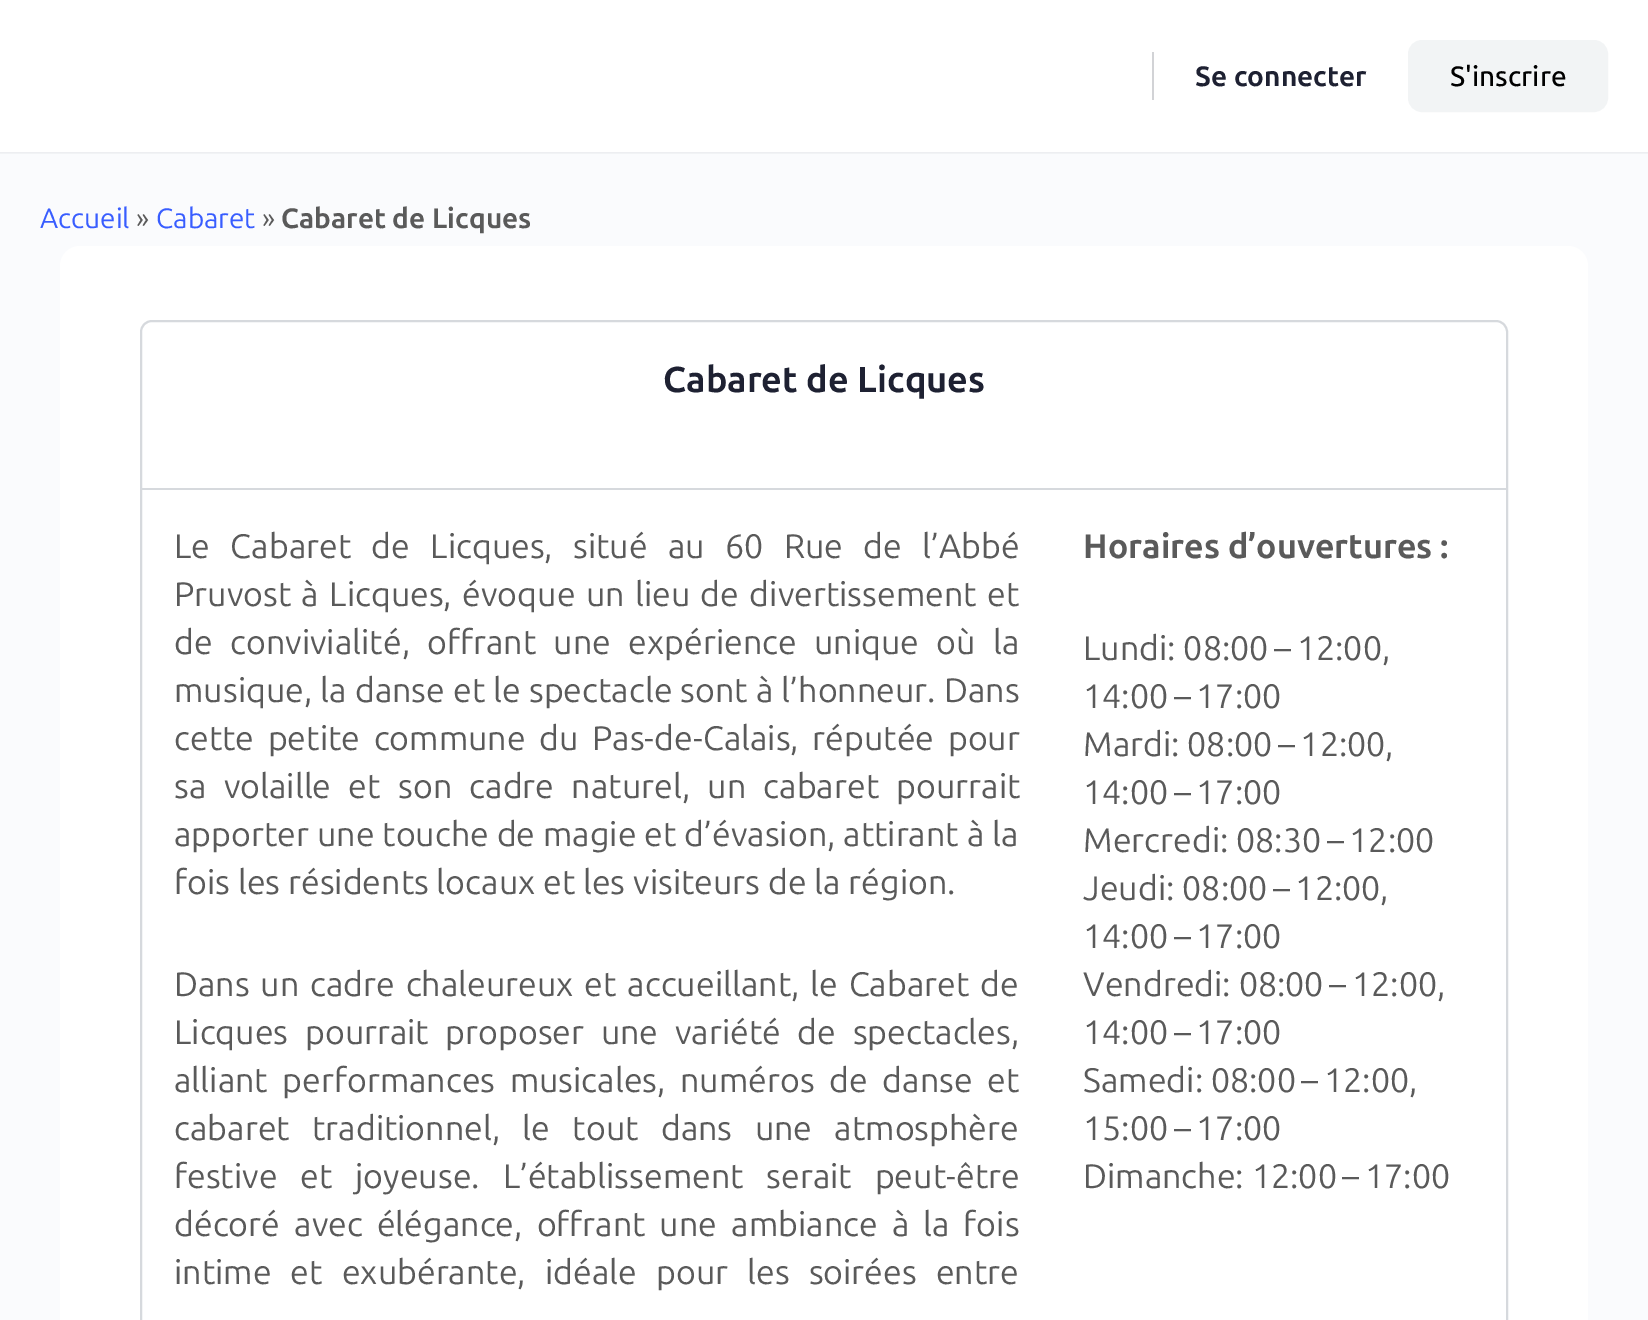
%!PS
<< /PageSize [1648 1320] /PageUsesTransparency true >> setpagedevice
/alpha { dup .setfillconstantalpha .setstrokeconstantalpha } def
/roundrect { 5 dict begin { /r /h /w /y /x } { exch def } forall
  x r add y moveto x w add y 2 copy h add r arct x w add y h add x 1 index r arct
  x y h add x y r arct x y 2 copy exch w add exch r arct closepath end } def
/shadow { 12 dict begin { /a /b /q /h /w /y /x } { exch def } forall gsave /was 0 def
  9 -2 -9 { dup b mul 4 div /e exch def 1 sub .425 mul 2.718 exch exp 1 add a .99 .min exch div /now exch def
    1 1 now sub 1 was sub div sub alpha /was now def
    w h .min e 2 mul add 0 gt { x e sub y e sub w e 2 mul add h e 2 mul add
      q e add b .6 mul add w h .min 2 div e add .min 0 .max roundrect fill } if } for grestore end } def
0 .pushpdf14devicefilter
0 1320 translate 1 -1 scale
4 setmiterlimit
0.98 0.984 0.992 setrgbcolor
0 0 1648 1320 rectfill
0.255 0.278 0.424 setrgbcolor
0 0 1648 152 0 1 0.15 shadow
0.05 alpha
0.545 0.553 0.616 setrgbcolor
0 152 1648 2 rectfill
1 alpha
1 setgray
0 0 1648 152 rectfill
0.824 0.827 0.839 setrgbcolor
1152 52 2 48 rectfill
/Ubuntu-Bold [28 0 0 -28 0 0] selectfont
0.118 0.129 0.196 setrgbcolor
1195 86 moveto (Se connecter) show
0.949 0.957 0.961 setrgbcolor
1409 41 198 70 13 roundrect gsave fill grestore
2 setlinewidth
stroke
/Ubuntu-Medium [28 0 0 -28 0 0] selectfont
0 setgray
1450 86 moveto (S'inscrire) show
/Ubuntu-Regular [28 0 0 -28 0 0] selectfont
0.22 0.365 1 setrgbcolor
40 228 moveto (Accueil) show
0.353 setgray
136 228 moveto (») show
0.22 0.365 1 setrgbcolor
156 228 moveto (Cabaret) show
0.353 setgray
262 228 moveto (») show
/Ubuntu-Bold [28 0 0 -28 0 0] selectfont
281 228 moveto (Cabaret de Licques) show
1 setgray
60 246 1528 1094 20 roundrect fill
0.839 0.851 0.867 setrgbcolor
141 321 1366 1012 11 roundrect stroke
142 488 1364 2 rectfill
/Ubuntu-Bold [36 0 0 -36 0 0] selectfont
0.118 0.129 0.196 setrgbcolor
663 392 moveto (Cabaret de Licques) show
/Ubuntu-Regular [34 0 0 -34 0 0] selectfont
0.353 setgray
174 558 moveto 12.5 0 32 (Le Cabaret de Licques, situé au 60 Rue de l’Abbé) widthshow
174 606 moveto 2.5 0 32 (Pruvost à Licques, évoque un lieu de divertissement et) widthshow
174 654 moveto 9.5 0 32 (de convivialité, offrant une expérience unique où la) widthshow
174 702 moveto 0.25 0 32 (musique, la danse et le spectacle sont à l’honneur. Dans) widthshow
174 750 moveto 5.75 0 32 (cette petite commune du Pas-de-Calais, réputée pour) widthshow
174 798 moveto 9.5 0 32 (sa volaille et son cadre naturel, un cabaret pourrait) widthshow
174 846 moveto (apporter une touche de magie et d’évasion, attirant à la) show
174 894 moveto (fois les résidents locaux et les visiteurs de la région.) show
174 996 moveto 3 0 32 (Dans un cadre chaleureux et accueillant, le Cabaret de) widthshow
174 1044 moveto 8.75 0 32 (Licques pourrait proposer une variété de spectacles,) widthshow
174 1092 moveto 6.75 0 32 (alliant performances musicales, numéros de danse et) widthshow
174 1140 moveto 14.5 0 32 (cabaret traditionnel, le tout dans une atmosphère) widthshow
174 1188 moveto 15 0 32 (festive et joyeuse. L’établissement serait peut-être) widthshow
174 1236 moveto 6.25 0 32 (décoré avec élégance, offrant une ambiance à la fois) widthshow
174 1284 moveto 11.25 0 32 (intime et exubérante, idéale pour les soirées entre) widthshow
/Ubuntu-Bold [34 0 0 -34 0 0] selectfont
1083 558 moveto (Horaires d’ouvertures :) show
/Ubuntu-Regular [34 0 0 -34 0 0] selectfont
1083 660 moveto (Lundi: 08:00 – 12:00,) show
1083 708 moveto (14:00 – 17:00) show
1083 756 moveto (Mardi: 08:00 – 12:00,) show
1083 804 moveto (14:00 – 17:00) show
1083 852 moveto (Mercredi: 08:30 – 12:00) show
1083 900 moveto (Jeudi: 08:00 – 12:00,) show
1083 948 moveto (14:00 – 17:00) show
1083 996 moveto (Vendredi: 08:00 – 12:00,) show
1083 1044 moveto (14:00 – 17:00) show
1083 1092 moveto (Samedi: 08:00 – 12:00,) show
1083 1140 moveto (15:00 – 17:00) show
1083 1188 moveto (Dimanche: 12:00 – 17:00) show
.poppdf14devicefilter showpage
